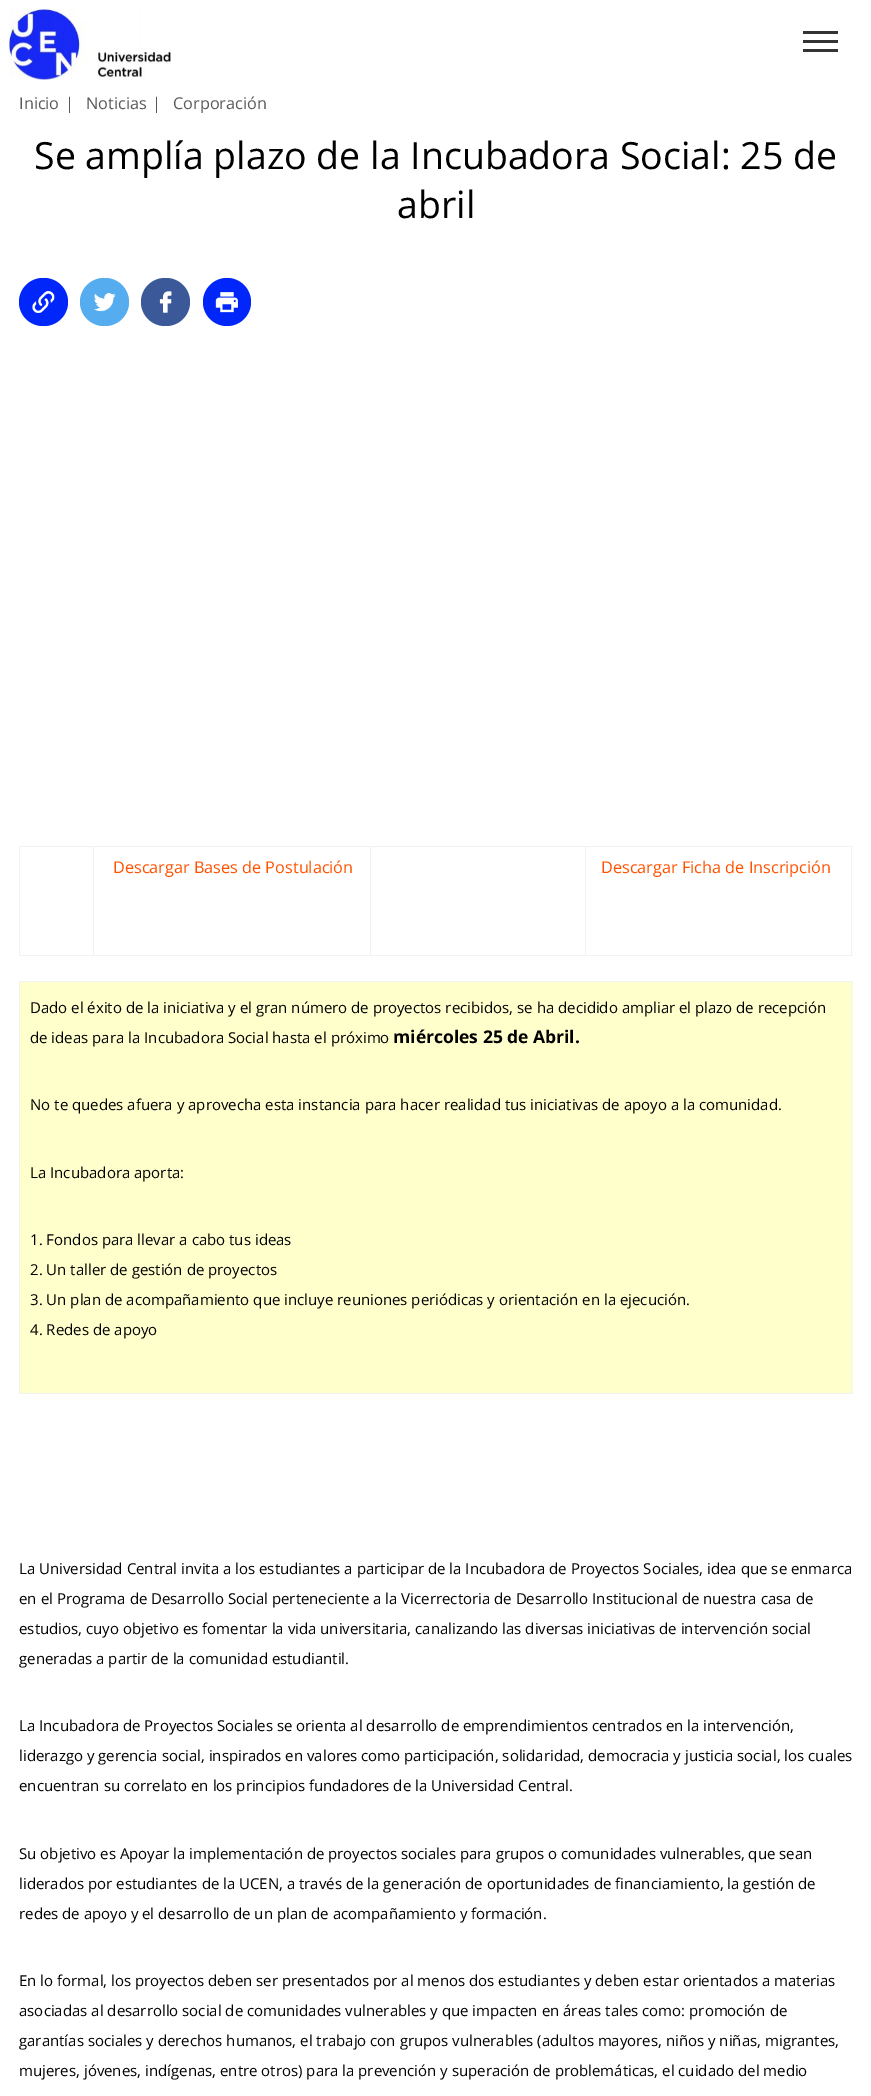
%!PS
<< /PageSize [871 2096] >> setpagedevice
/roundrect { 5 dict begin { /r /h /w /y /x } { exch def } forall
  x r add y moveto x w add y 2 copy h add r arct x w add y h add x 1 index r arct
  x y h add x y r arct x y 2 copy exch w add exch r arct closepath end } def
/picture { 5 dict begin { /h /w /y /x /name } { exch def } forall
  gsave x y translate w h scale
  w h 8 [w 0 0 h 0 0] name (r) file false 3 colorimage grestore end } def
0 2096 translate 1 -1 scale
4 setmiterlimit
1 setgray
0 0 871 2096 rectfill
(img1.rgb) 8 8 163 72 picture
0.2 setgray
803 40 35 3 rectfill
803 31 35 3 rectfill
803 49 35 3 rectfill
/OpenSans-Regular [16.25 0 0 -16.25 0 0] selectfont
0.349 setgray
19 109 moveto (Inicio) show
65 109 moveto (|) show
86 109 moveto (Noticias) show
152 109 moveto (|) show
173 109 moveto (Corporación) show
/OpenSans-Regular [37.5 0 0 -37.5 0 0] selectfont
0 setgray
34 169 moveto (Se amplía plazo de la Incubadora Social: 25 de) show
397 218 moveto (abril) show
0 0.149 0.98 setrgbcolor
19 278 49 48 24 roundrect fill
(img2.rgb) 32 290 23 23 picture
0.333 0.675 0.933 setrgbcolor
80 278 49 48 24 roundrect fill
(img3.rgb) 94 293 22 19 picture
0.231 0.349 0.6 setrgbcolor
141 278 49 48 24 roundrect fill
(img4.rgb) 159 291 13 22 picture
0 0.149 0.98 setrgbcolor
newpath 227 302 24 0 360 arc closepath fill
(img5.rgb) 215 292 23 21 picture
0.949 0.949 0.957 setrgbcolor
585 846 268 1 rectfill
851 846 1 110 rectfill
585 955 268 1 rectfill
585 846 1 110 rectfill
370 846 216 1 rectfill
370 955 216 1 rectfill
370 846 1 110 rectfill
93 846 278 1 rectfill
93 955 278 1 rectfill
93 846 1 110 rectfill
19 846 75 1 rectfill
19 955 75 1 rectfill
19 846 1 110 rectfill
/OpenSans-Regular [16.25 0 0 -16.25 0 0] selectfont
1 0.322 0 setrgbcolor
113 873 moveto (Descargar Bases de Postulación) show
601 873 moveto (Descargar Ficha de Inscripción) show
1 1 0.8 setrgbcolor
20 982 833 411 rectfill
0.949 0.949 0.957 setrgbcolor
19 981 834 1 rectfill
851 981 1 413 rectfill
19 1393 834 1 rectfill
19 981 1 413 rectfill
/OpenSans-Regular [15 0 0 -15 0 0] selectfont
0 setgray
30 1013 moveto (Dado el éxito de la iniciativa y el gran número de proyectos recibidos, se ha decidido ampliar el plazo de recepción) show
30 1043 moveto (de ideas para la Incubadora Social hasta el próximo) show
/OpenSans-Bold [17.5 0 0 -17.5 0 0] selectfont
393 1043 moveto (miércoles 25 de Abril.) show
/OpenSans-Regular [15 0 0 -15 0 0] selectfont
30 1110 moveto (No te quedes afuera y aprovecha esta instancia para hacer realidad tus iniciativas de apoyo a la comunidad.) show
30 1178 moveto (La Incubadora aporta:) show
30 1245 moveto (1. Fondos para llevar a cabo tus ideas) show
30 1275 moveto (2. Un taller de gestión de proyectos) show
30 1305 moveto (3. Un plan de acompañamiento que incluye reuniones periódicas y orientación en la ejecución.) show
30 1335 moveto (4. Redes de apoyo) show
19 1574 moveto (La Universidad Central invita a los estudiantes a participar de la Incubadora de Proyectos Sociales, idea que se enmarca) show
19 1604 moveto (en el Programa de Desarrollo Social perteneciente a la Vicerrectoria de Desarrollo Institucional de nuestra casa de) show
19 1634 moveto (estudios, cuyo objetivo es fomentar la vida universitaria, canalizando las diversas iniciativas de intervención social) show
19 1664 moveto (generadas a partir de la comunidad estudiantil.) show
19 1731 moveto (La Incubadora de Proyectos Sociales se orienta al desarrollo de emprendimientos centrados en la intervención,) show
19 1761 moveto (liderazgo y gerencia social, inspirados en valores como participación, solidaridad, democracia y justicia social, los cuales) show
19 1791 moveto (encuentran su correlato en los principios fundadores de la Universidad Central.) show
19 1859 moveto (Su objetivo es Apoyar la implementación de proyectos sociales para grupos o comunidades vulnerables, que sean) show
19 1889 moveto (liderados por estudiantes de la UCEN, a través de la generación de oportunidades de financiamiento, la gestión de) show
19 1919 moveto (redes de apoyo y el desarrollo de un plan de acompañamiento y formación.) show
19 1986 moveto (En lo formal, los proyectos deben ser presentados por al menos dos estudiantes y deben estar orientados a materias) show
19 2016 moveto (asociadas al desarrollo social de comunidades vulnerables y que impacten en áreas tales como: promoción de) show
19 2046 moveto (garantías sociales y derechos humanos, el trabajo con grupos vulnerables \(adultos mayores, niños y niñas, migrantes,) show
19 2076 moveto (mujeres, jóvenes, indígenas, entre otros\) para la prevención y superación de problemáticas, el cuidado del medio) show
showpage
